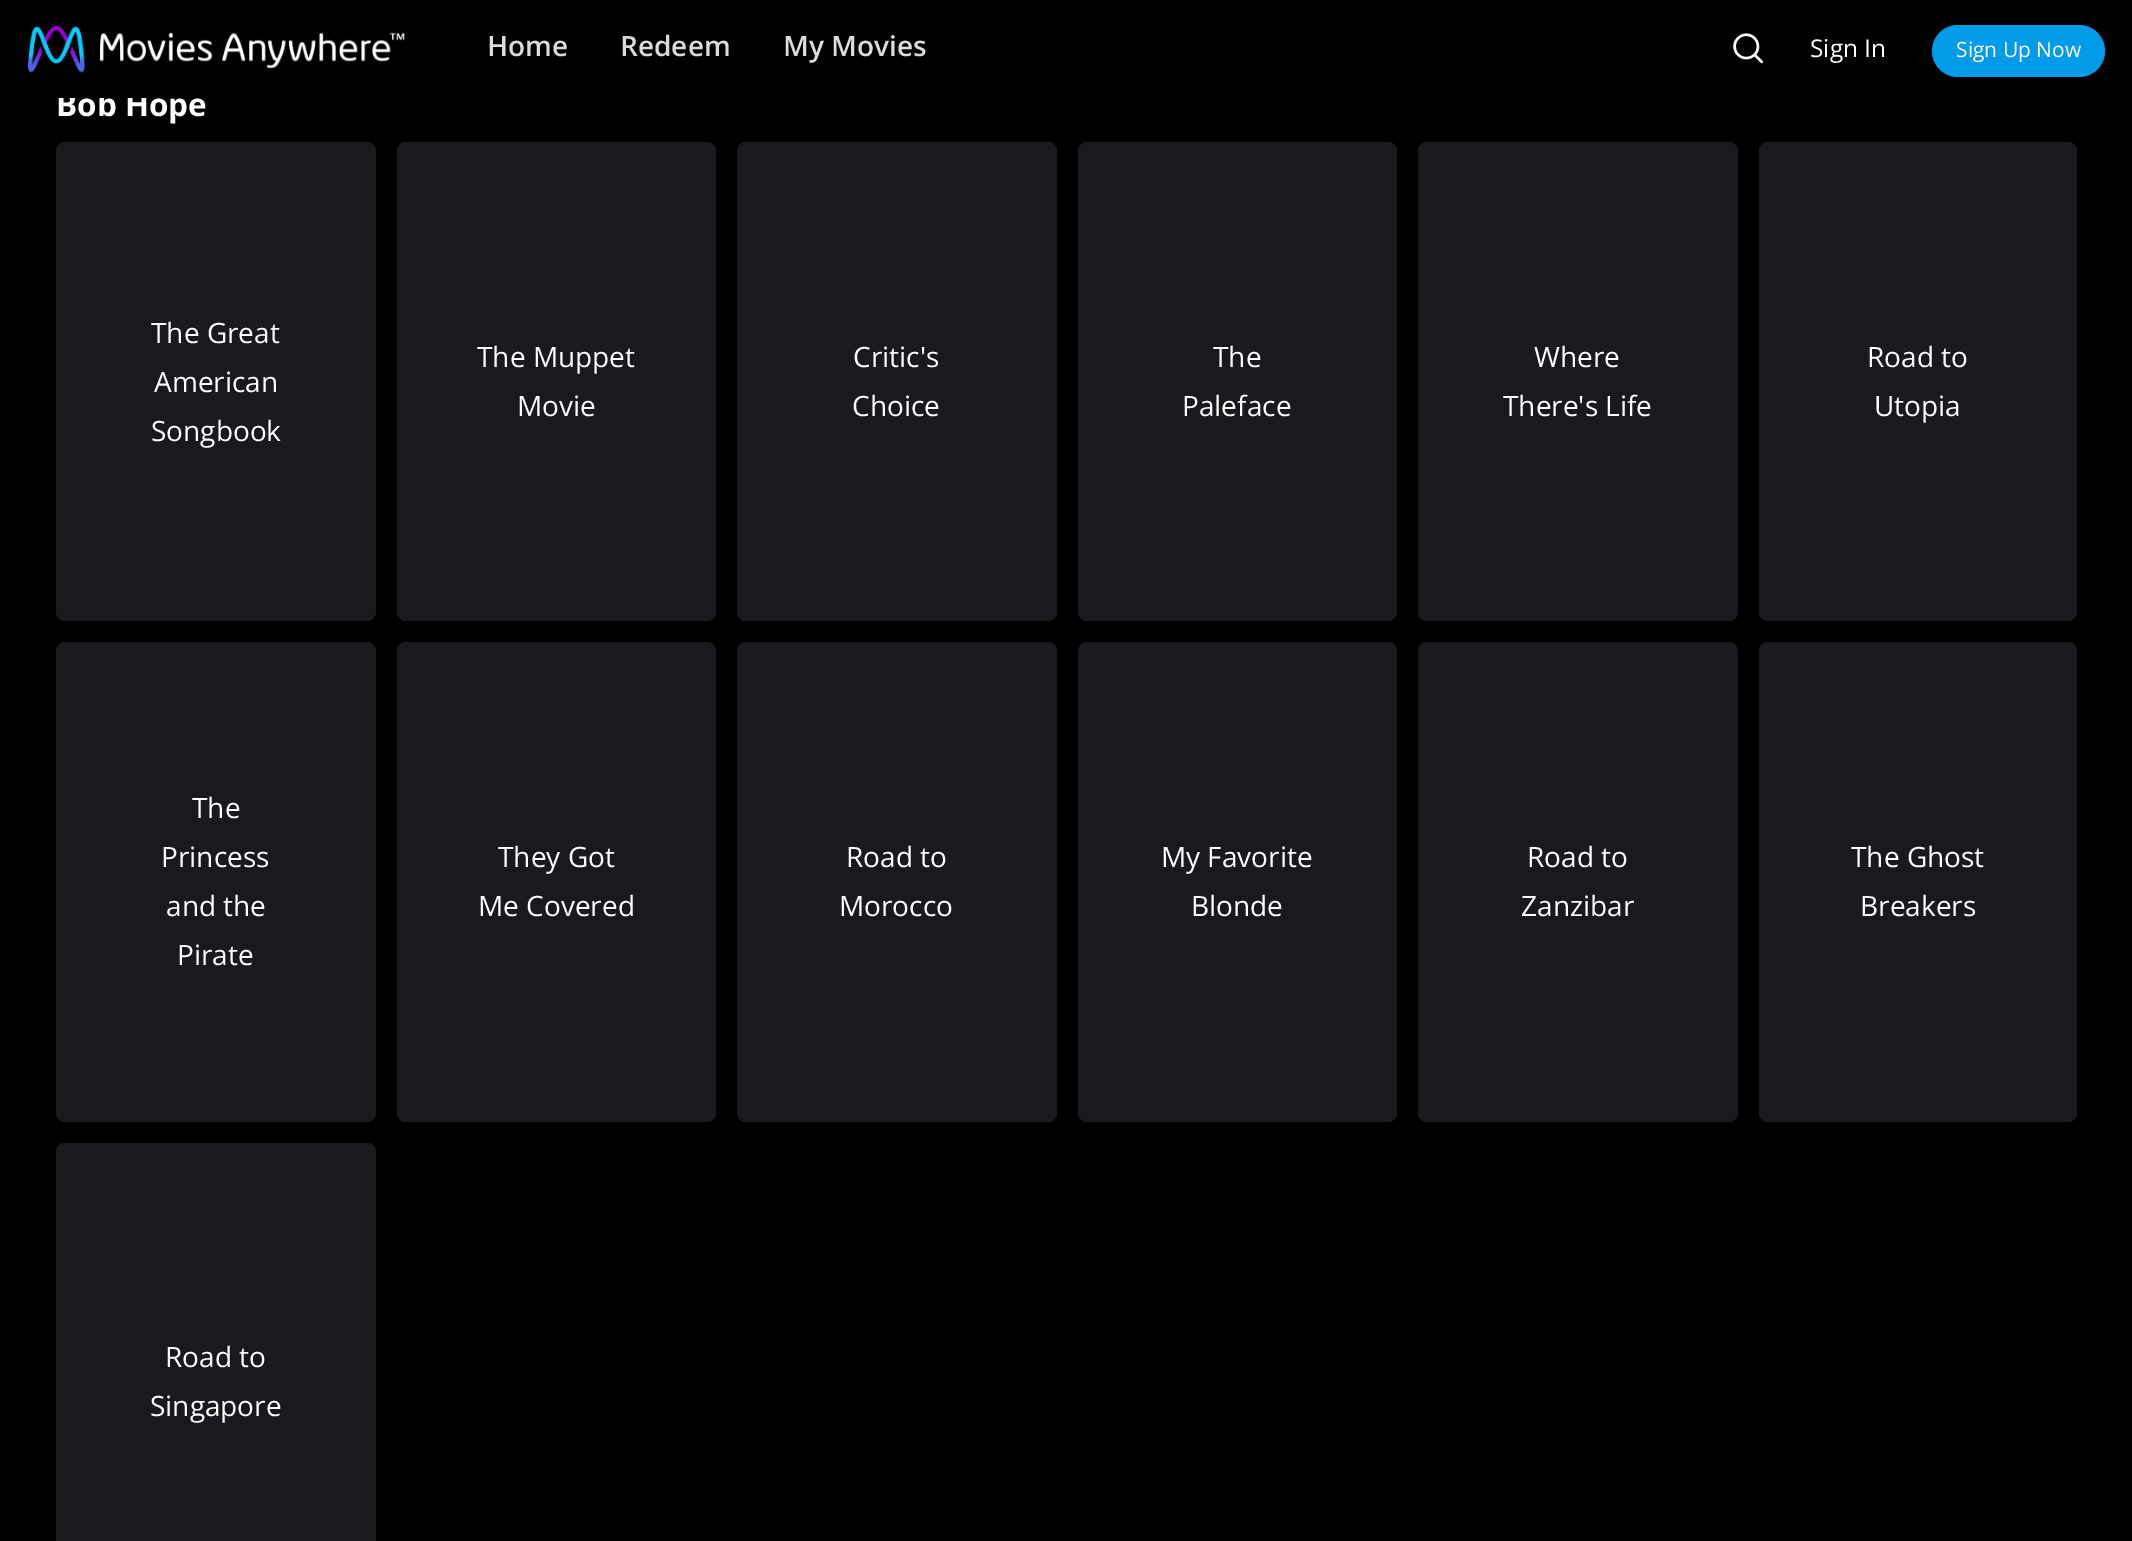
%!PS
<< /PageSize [2132 1541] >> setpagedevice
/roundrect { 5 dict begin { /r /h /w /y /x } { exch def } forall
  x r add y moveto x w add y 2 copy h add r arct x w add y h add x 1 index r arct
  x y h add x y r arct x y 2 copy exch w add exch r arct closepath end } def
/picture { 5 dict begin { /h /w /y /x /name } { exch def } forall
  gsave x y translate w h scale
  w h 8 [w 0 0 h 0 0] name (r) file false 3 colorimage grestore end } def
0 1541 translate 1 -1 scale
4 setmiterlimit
0 setgray
0 0 2132 1541 rectfill
/OpenSans-Bold [31.5 0 0 -31.5 0 0] selectfont
1 setgray
56 116 moveto (Bob Hope) show
0 setgray
58 92 89 6 rectfill
(img1.rgb) 28 25 377 48 picture
/OpenSans-SemiBold [28 0 0 -28 0 0] selectfont
0.863 setgray
487 56 moveto (Home) show
620 56 moveto (Redeem) show
783 56 moveto (My Movies) show
(img2.rgb) 1733 33 31 31 picture
/OpenSans-Regular [24.5 0 0 -24.5 0 0] selectfont
1 setgray
1810 57 moveto (Sign In) show
0 0.612 0.918 setrgbcolor
1932 25 173 52 26 roundrect fill
/OpenSans-Regular [21 0 0 -21 0 0] selectfont
1 setgray
1956 57 moveto (Sign Up Now) show
0.094 0.102 0.114 setrgbcolor
56 142 320 479 9 roundrect fill
/OpenSans-Regular [28 0 0 -28 0 0] selectfont
1 setgray
151 343 moveto (The Great) show
154 392 moveto (American) show
151 441 moveto (Songbook) show
0.094 0.102 0.114 setrgbcolor
397 142 319 479 9 roundrect fill
1 setgray
477 367 moveto (The Muppet) show
517 416 moveto (Movie) show
0.094 0.102 0.114 setrgbcolor
737 142 320 479 9 roundrect fill
1 setgray
853 367 moveto (Critic's) show
852 416 moveto (Choice) show
0.094 0.102 0.114 setrgbcolor
1078 142 319 479 9 roundrect fill
1 setgray
1213 367 moveto (The) show
1182 416 moveto (Paleface) show
0.094 0.102 0.114 setrgbcolor
1418 142 320 479 9 roundrect fill
1 setgray
1534 367 moveto (Where) show
1503 416 moveto (There's Life) show
0.094 0.102 0.114 setrgbcolor
1759 142 318 479 9 roundrect fill
1 setgray
1867 367 moveto (Road to) show
1874 416 moveto (Utopia) show
0.094 0.102 0.114 setrgbcolor
56 642 320 480 9 roundrect fill
1 setgray
192 818 moveto (The) show
161 867 moveto (Princess) show
166 916 moveto (and the) show
177 965 moveto (Pirate) show
0.094 0.102 0.114 setrgbcolor
397 642 319 480 9 roundrect fill
1 setgray
498 867 moveto (They Got) show
478 916 moveto (Me Covered) show
0.094 0.102 0.114 setrgbcolor
737 642 320 480 9 roundrect fill
1 setgray
846 867 moveto (Road to) show
839 916 moveto (Morocco) show
0.094 0.102 0.114 setrgbcolor
1078 642 319 480 9 roundrect fill
1 setgray
1161 867 moveto (My Favorite) show
1191 916 moveto (Blonde) show
0.094 0.102 0.114 setrgbcolor
1418 642 320 480 9 roundrect fill
1 setgray
1527 867 moveto (Road to) show
1521 916 moveto (Zanzibar) show
0.094 0.102 0.114 setrgbcolor
1759 642 318 480 9 roundrect fill
1 setgray
1851 867 moveto (The Ghost) show
1860 916 moveto (Breakers) show
0.094 0.102 0.114 setrgbcolor
56 1143 320 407 9 roundrect fill
1 setgray
165 1367 moveto (Road to) show
150 1416 moveto (Singapore) show
showpage
